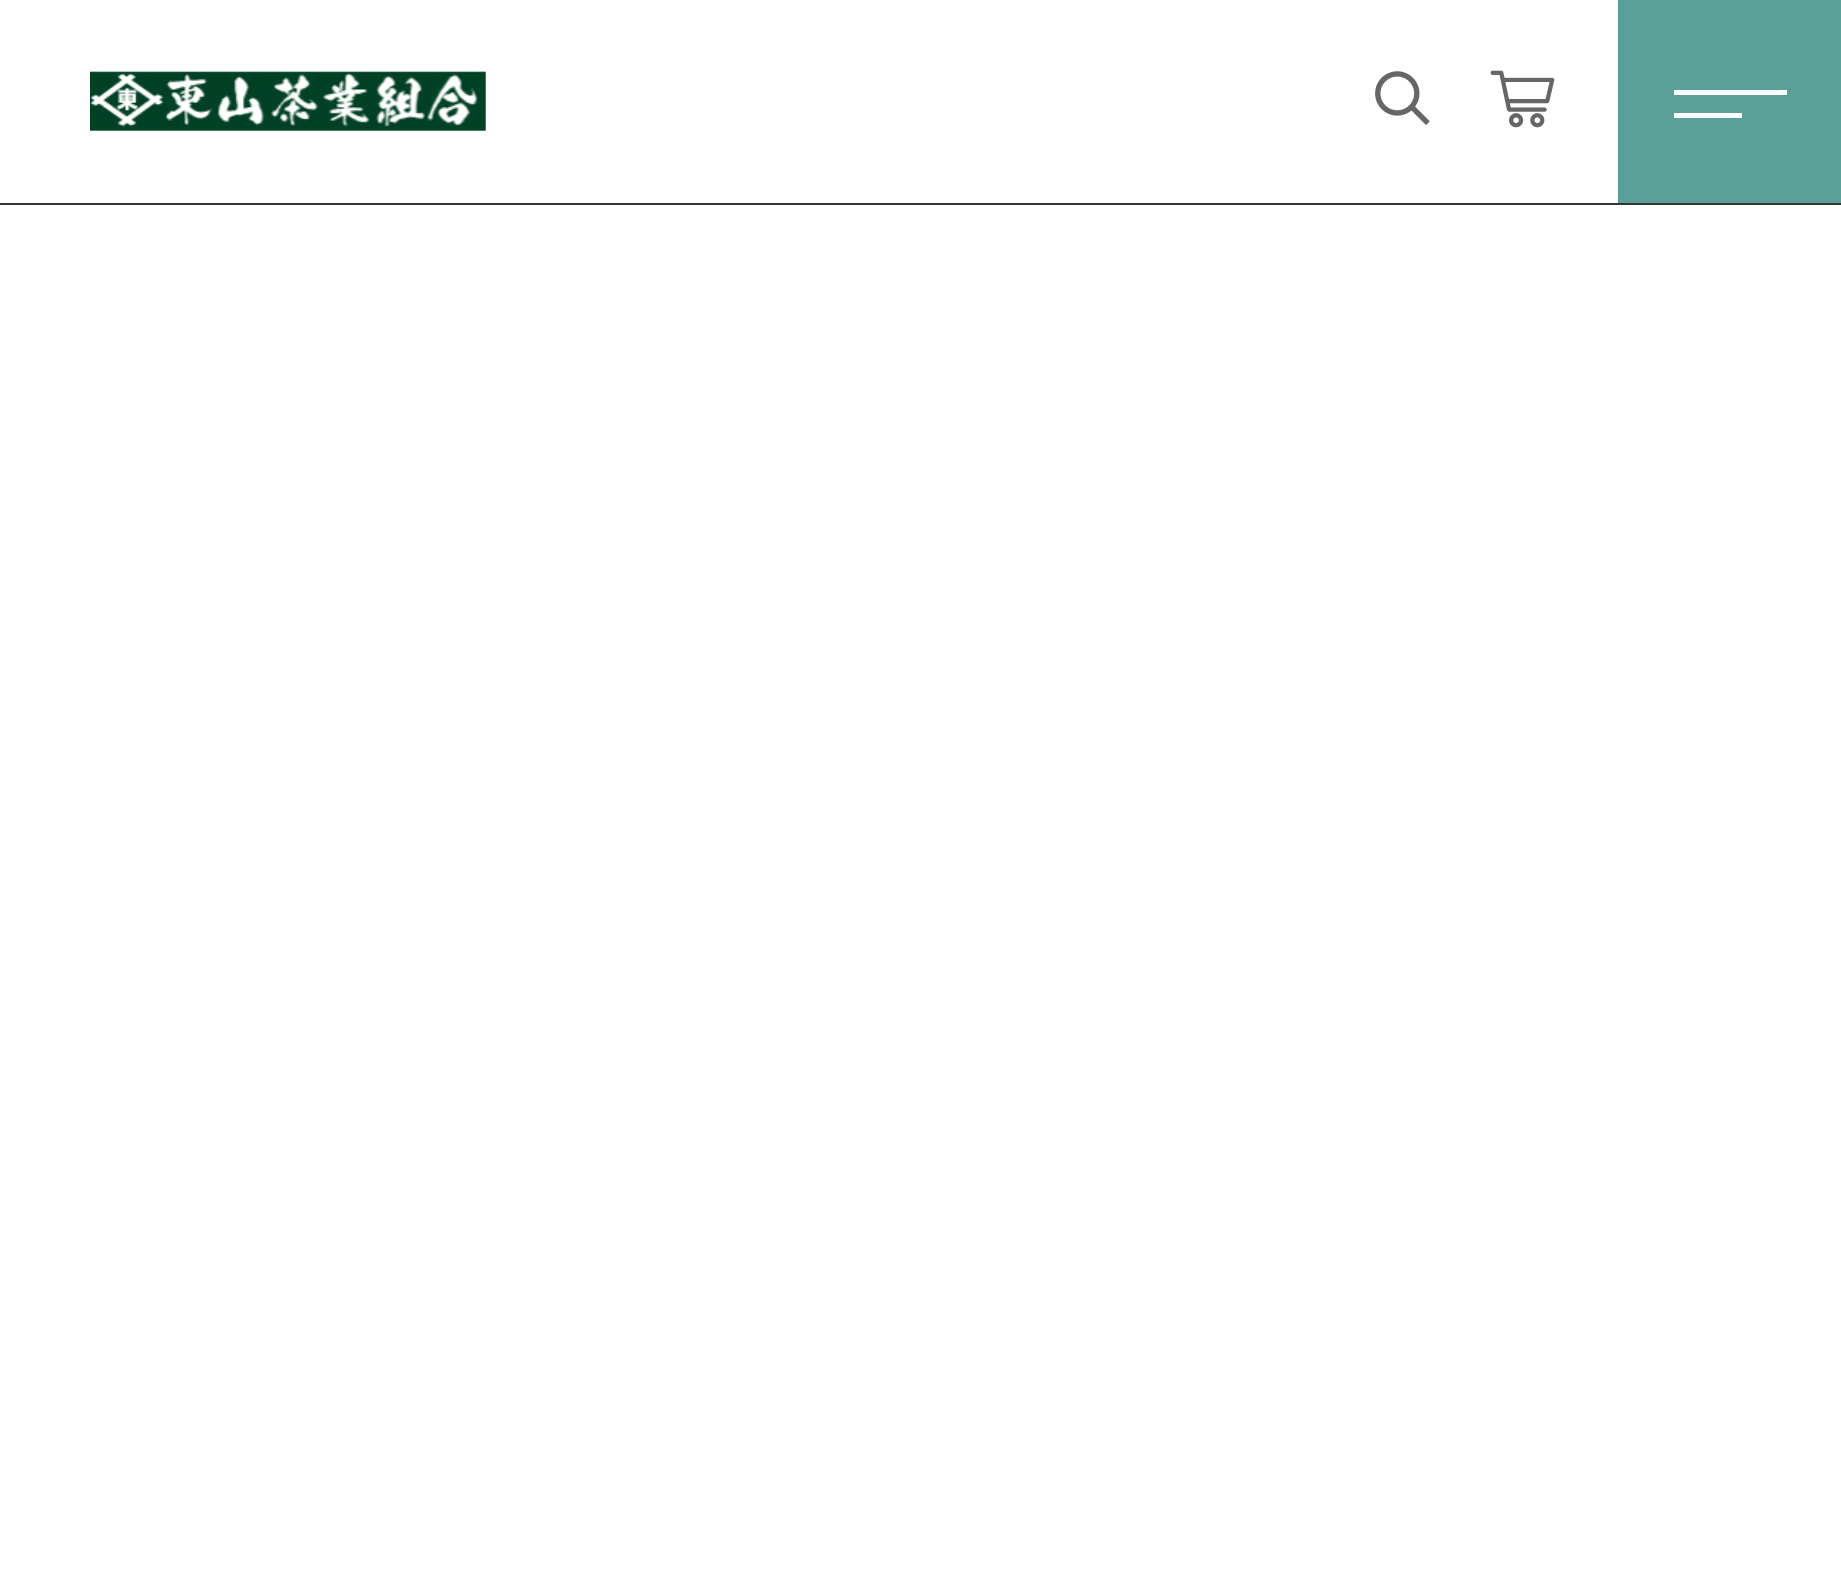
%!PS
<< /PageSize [1841 1585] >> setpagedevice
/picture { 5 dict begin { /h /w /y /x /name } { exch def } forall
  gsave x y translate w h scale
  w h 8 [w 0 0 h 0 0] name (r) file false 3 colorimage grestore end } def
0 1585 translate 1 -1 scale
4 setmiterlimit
1 setgray
0 0 1841 1585 rectfill
0.204 setgray
0 203 1841 2 rectfill
(img1.rgb) 90 71 396 60 picture
(img2.rgb) 1375 71 55 54 picture
(img3.rgb) 1490 70 65 58 picture
0.353 0.627 0.6 setrgbcolor
1618 0 223 203 rectfill
1 setgray
1674 90 113 5 rectfill
1674 113 68 5 rectfill
showpage
